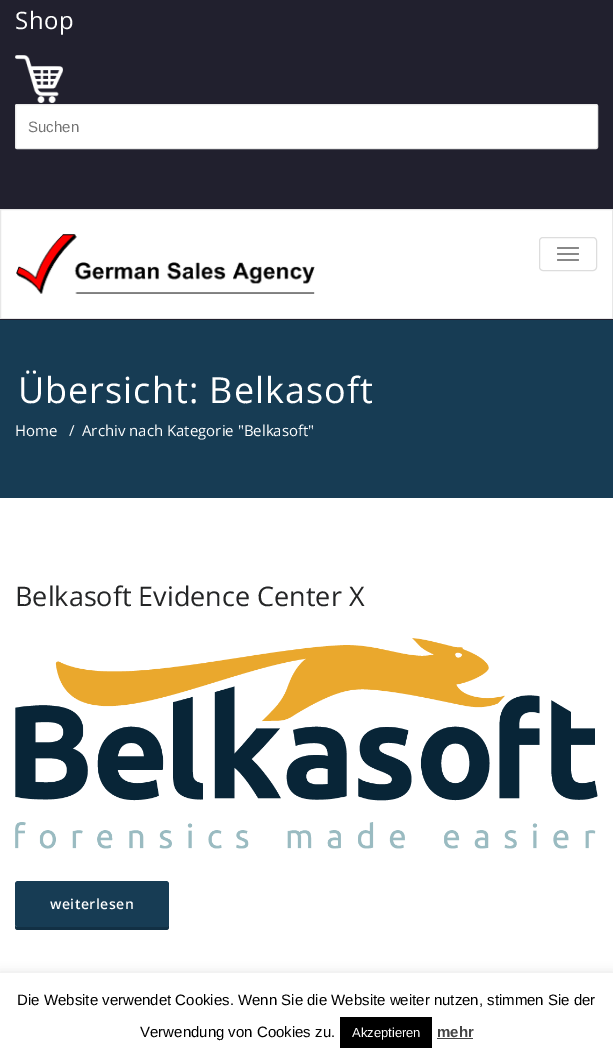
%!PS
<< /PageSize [613 1060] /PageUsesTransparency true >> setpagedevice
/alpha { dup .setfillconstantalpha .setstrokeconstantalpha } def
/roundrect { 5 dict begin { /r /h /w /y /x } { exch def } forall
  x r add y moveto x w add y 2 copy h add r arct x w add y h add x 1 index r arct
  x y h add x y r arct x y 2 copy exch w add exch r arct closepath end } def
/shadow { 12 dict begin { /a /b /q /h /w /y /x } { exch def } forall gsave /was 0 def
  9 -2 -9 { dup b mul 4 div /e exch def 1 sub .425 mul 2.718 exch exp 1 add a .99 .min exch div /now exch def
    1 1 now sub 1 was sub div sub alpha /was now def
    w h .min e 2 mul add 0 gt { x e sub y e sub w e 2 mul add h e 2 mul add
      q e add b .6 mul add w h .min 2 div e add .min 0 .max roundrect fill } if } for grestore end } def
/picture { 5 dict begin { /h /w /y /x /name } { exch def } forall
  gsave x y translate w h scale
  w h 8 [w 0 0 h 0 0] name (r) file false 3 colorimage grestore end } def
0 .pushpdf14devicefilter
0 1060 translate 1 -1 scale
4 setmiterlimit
1 setgray
0 0 613 1060 rectfill
0.129 0.125 0.18 setrgbcolor
0 0 613 209 rectfill
/OpenSans-Regular [24 0 0 -24 0 0] selectfont
1 setgray
15 29 moveto 0.5 0 (Shop) ashow
(img1.rgb) 15 55 48 48 picture
15.5 104.5 582 44 1.5 roundrect gsave fill grestore
0.914 setgray
stroke
/LiberationSans-Regular [15 0 0 -15 0 0] selectfont
0.459 setgray
28 132 moveto (Suchen) show
0.906 setgray
0.5 209.5 612 109 rectstroke
(img2.rgb) 16 234 299 60 picture
0.867 setgray
539.5 237.5 57 33 3.5 roundrect stroke
0.533 setgray
557 247 22 2 1 roundrect fill
557 253 22 2 1 roundrect fill
557 259 22 2 1 roundrect fill
0.09 0.235 0.329 setrgbcolor
0 320 613 178 rectfill
0.129 0.125 0.18 setrgbcolor
0 319 613 1 rectfill
/OpenSans-Regular [36 0 0 -36 0 0] selectfont
1 setgray
18 403 moveto 1 0 (Übersicht: Belkasoft) ashow
/OpenSans-Regular [15 0 0 -15 0 0] selectfont
15 436 moveto (Home) show
69 436 moveto (/) show
82 436 moveto (Archiv nach Kategorie "Belkasoft") show
/OpenSans-Regular [27 0 0 -27 0 0] selectfont
0.141 0.145 0.149 setrgbcolor
15 606 moveto (Belkasoft Evidence Center X) show
(img3.rgb) 15 638 583 211 picture
0.071 0.188 0.267 setrgbcolor
newpath 15 924 moveto 15 927 lineto 15 929 16 930 18 930 curveto 166 930 lineto 168 930 169 929 169 927 curveto 169 924 lineto 168 926 lineto 166 927 lineto 18 927 lineto 16 927 15 926 15 924 curveto closepath fill
0.09 0.235 0.329 setrgbcolor
15 881 154 46 3 roundrect fill
/OpenSans-SemiBold [14 0 0 -14 0 0] selectfont
1 setgray
50 909 moveto 0.5 0 (weiterlesen) ashow
0.675 0.671 0.671 setrgbcolor
0 972 613 87 0 5 0.3 shadow
1 setgray
0 973 613 87 rectfill
/LiberationSans-Regular [15 0 0 -15 0 0] selectfont
0 setgray
17 1005 moveto (Die Website verwendet Cookies. Wenn Sie die Website weiter nutzen, stimmen Sie der) show
140 1037 moveto (Verwendung von Cookies zu.) show
340 1017 92 31 rectfill
/LiberationSans-Regular [13 0 0 -13 0 0] selectfont
1 setgray
352 1037 moveto (Akzeptieren) show
/LiberationSans-Bold [15 0 0 -15 0 0] selectfont
0.267 setgray
437 1037 moveto (mehr) show
437 1038 36 1 rectfill
.poppdf14devicefilter showpage
